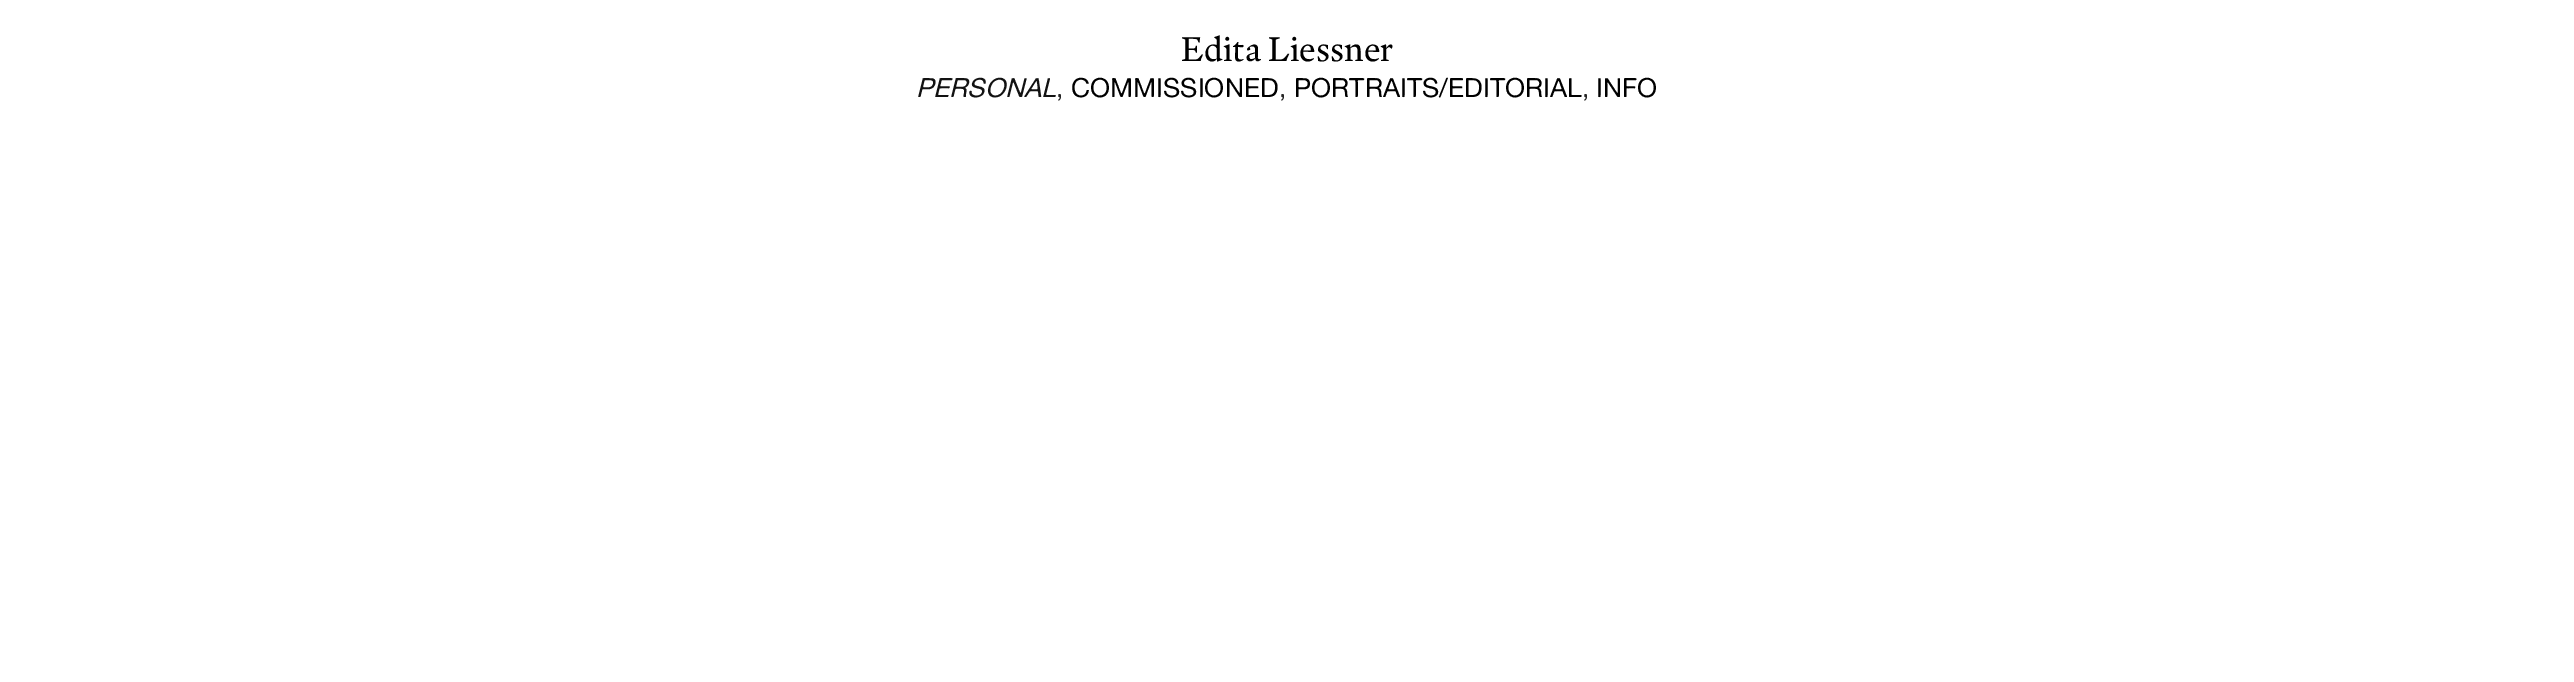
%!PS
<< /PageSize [2574 682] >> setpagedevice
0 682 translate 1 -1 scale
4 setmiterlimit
1 setgray
0 0 2574 682 rectfill
/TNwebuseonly-Regular [34.5 0 0 -34.5 0 0] selectfont
0 setgray
1181 61 moveto (Edita Liessner) show
/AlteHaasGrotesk-Italic [26.5 0 0 -26.5 0 0] selectfont
0.071 setgray
916 97 moveto (PERSONAL) show
/AlteHaasGrotesk-Regular [26.5 0 0 -26.5 0 0] selectfont
0.149 setgray
1056 97 moveto (,) show
0 setgray
1071 97 moveto (COMMISSIONED) show
0.149 setgray
1279 97 moveto (,) show
0 setgray
1294 97 moveto (PORTRAITS/EDITORIAL) show
0.149 setgray
1582 97 moveto (,) show
0 setgray
1596 97 moveto (INFO) show
showpage
